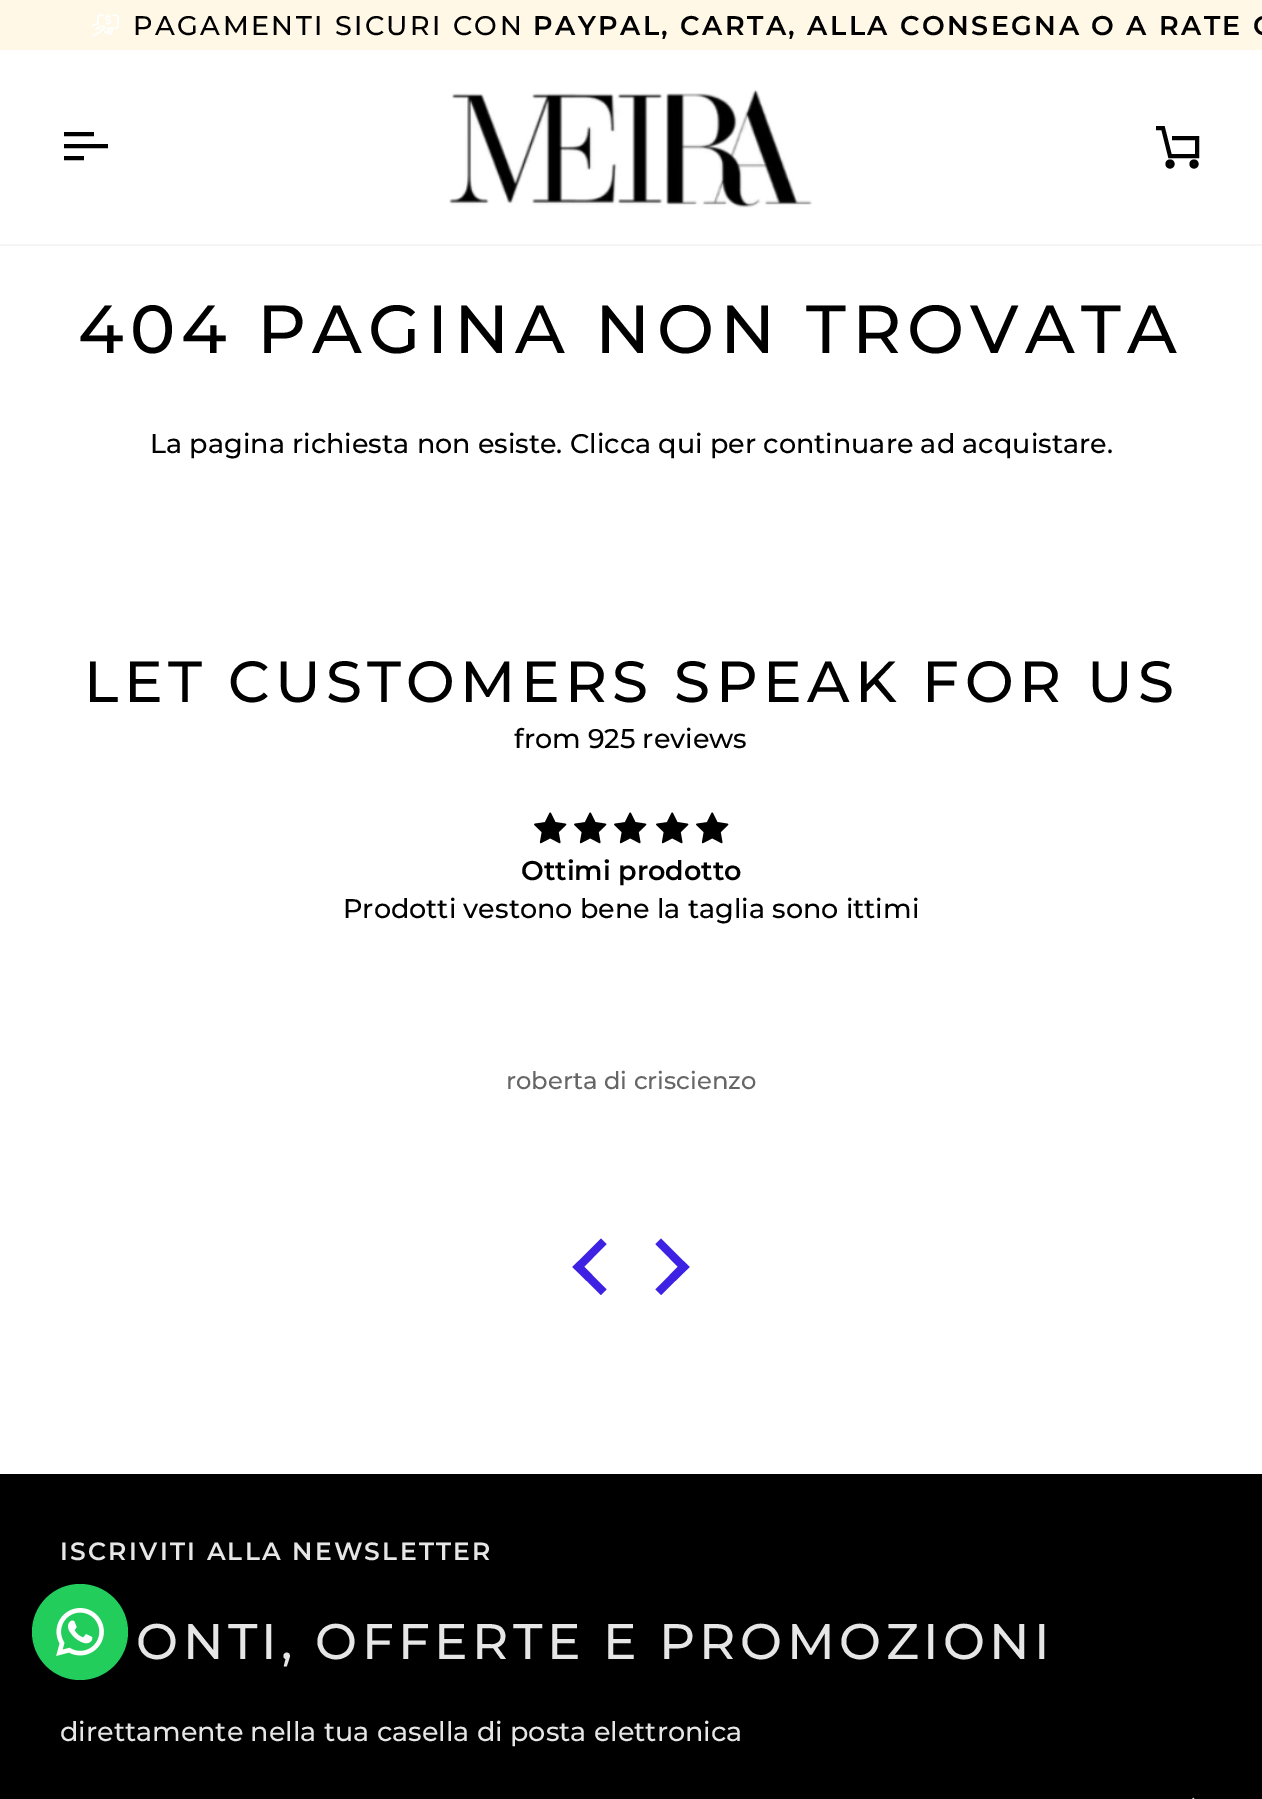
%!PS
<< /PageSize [1262 1799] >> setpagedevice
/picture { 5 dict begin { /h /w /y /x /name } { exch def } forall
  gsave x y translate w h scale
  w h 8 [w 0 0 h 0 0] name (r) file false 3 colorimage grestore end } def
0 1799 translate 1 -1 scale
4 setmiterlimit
1 setgray
0 0 1262 1799 rectfill
1 0.973 0.906 setrgbcolor
0 0 1262 50 rectfill
(img1.rgb) 92 14 27 23 picture
/Montserrat-Medium [27 0 0 -27 0 0] selectfont
0 setgray
133 35 moveto 2.45 0 (PAGAMENTI SICURI CON) ashow
/Montserrat-SemiBold [27 0 0 -27 0 0] selectfont
533 35 moveto 2.45 0 (PAYPAL, CARTA, ALLA CONSEGNA O A RATE C) ashow
0.969 0.961 0.957 setrgbcolor
0 244 1262 2 rectfill
0 setgray
4 setlinewidth
2 setlinecap
newpath 92 134 moveto 66 134 lineto 106 146 moveto 66 146 lineto 82 158 moveto 66 158 lineto stroke
(img2.rgb) 449 89 363 119 picture
0 setlinecap
newpath 1156 128 moveto 1163 128 lineto 1170 156 lineto 1197 156 lineto 1197 138 lineto 1172 138 lineto stroke
newpath 1170 164 2.5 0 360 arc closepath stroke
newpath 1194 164 2.5 0 360 arc closepath stroke
/Montserrat-Medium [68 0 0 -68 0 0] selectfont
78 353 moveto 6.1 0 (404 PAGINA NON TROVATA) ashow
/Montserrat-Medium [27 0 0 -27 0 0] selectfont
150 453 moveto (La pagina richiesta non esiste. Clicca qui per continuare ad acquistare.) show
/Montserrat-Medium [58 0 0 -58 0 0] selectfont
84 702 moveto 5.25 0 (LET CUSTOMERS SPEAK FOR US) ashow
/Montserrat-Medium [27 0 0 -27 0 0] selectfont
514 748 moveto (from 925 reviews) show
(img3.rgb) 534 812 33 32 picture
(img3.rgb) 574 812 33 32 picture
(img3.rgb) 614 812 33 32 picture
(img3.rgb) 656 812 33 32 picture
(img3.rgb) 696 812 33 32 picture
/Montserrat-SemiBold [27 0 0 -27 0 0] selectfont
521 880 moveto (Ottimi prodotto) show
/Montserrat-Medium [27 0 0 -27 0 0] selectfont
343 918 moveto (Prodotti vestono bene la taglia sono ittimi) show
/Montserrat-Medium [24.25 0 0 -24.25 0 0] selectfont
0.4 setgray
506 1089 moveto (roberta di criscienzo) show
0.239 0.133 0.894 setrgbcolor
newpath 572.5 1267 moveto 601 1238.5 lineto 606.5 1244 lineto 578.5 1272.5 lineto closepath fill
newpath 572.5 1267 moveto 578.5 1261 lineto 606.5 1289.5 lineto 601 1295 lineto closepath fill
newpath 655.5 1244 moveto 661 1238.5 lineto 689.5 1267 lineto 683.5 1272.5 lineto closepath fill
newpath 655.5 1289.5 moveto 683.5 1261 lineto 689.5 1267 lineto 661 1295 lineto closepath fill
0 setgray
0 1474 1262 325 rectfill
/Montserrat-SemiBold [25 0 0 -25 0 0] selectfont
0.902 setgray
60 1560 moveto 2.25 0 (ISCRIVITI ALLA NEWSLETTER) ashow
/Montserrat-Medium [50 0 0 -50 0 0] selectfont
136 1659 moveto 4.5 0 (ONTI, OFFERTE E PROMOZIONI) ashow
/Montserrat-Medium [27 0 0 -27 0 0] selectfont
60 1741 moveto (direttamente nella tua casella di posta elettronica) show
2.1 setlinewidth
newpath 1192.5 1798.5 moveto 1201 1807 lineto 1192.5 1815.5 lineto 1161 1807 moveto 1201 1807 lineto stroke
0.133 0.804 0.357 setrgbcolor
newpath 80 1632 48 0 360 arc closepath fill
(img4.rgb) 56 1608 48 48 picture
showpage
